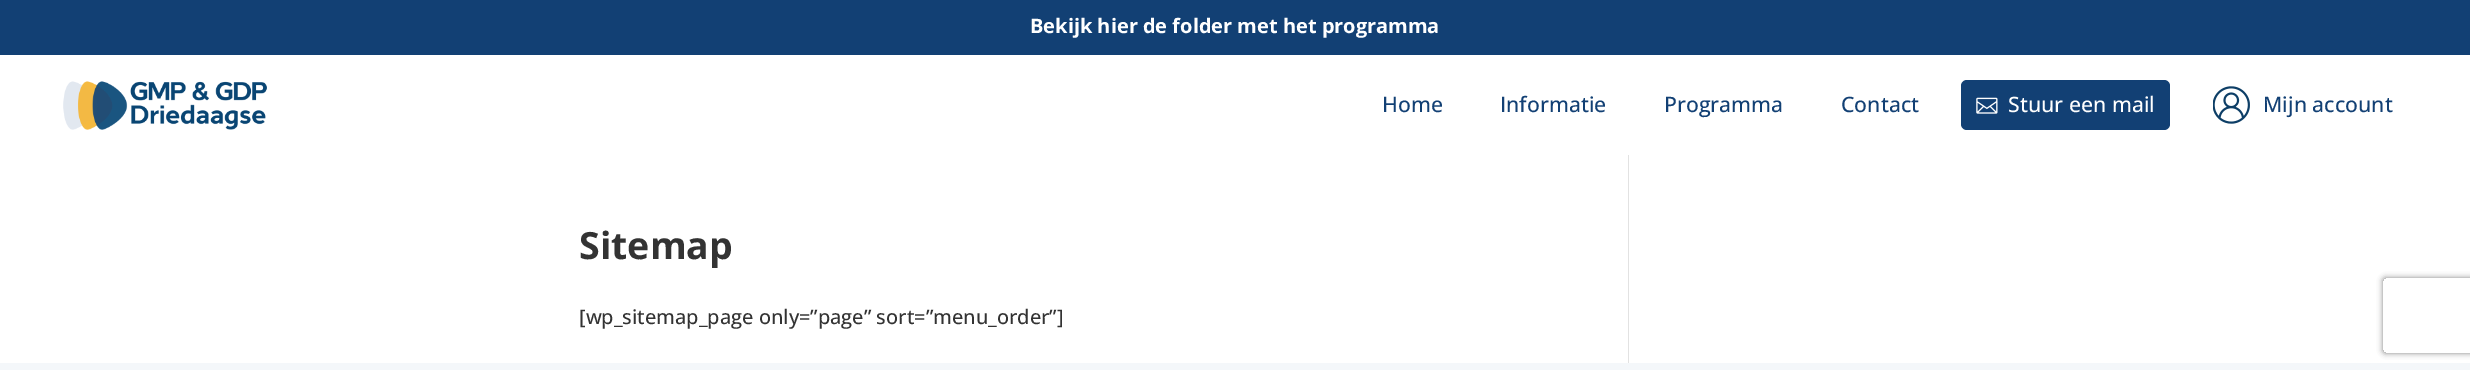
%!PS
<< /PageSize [2470 370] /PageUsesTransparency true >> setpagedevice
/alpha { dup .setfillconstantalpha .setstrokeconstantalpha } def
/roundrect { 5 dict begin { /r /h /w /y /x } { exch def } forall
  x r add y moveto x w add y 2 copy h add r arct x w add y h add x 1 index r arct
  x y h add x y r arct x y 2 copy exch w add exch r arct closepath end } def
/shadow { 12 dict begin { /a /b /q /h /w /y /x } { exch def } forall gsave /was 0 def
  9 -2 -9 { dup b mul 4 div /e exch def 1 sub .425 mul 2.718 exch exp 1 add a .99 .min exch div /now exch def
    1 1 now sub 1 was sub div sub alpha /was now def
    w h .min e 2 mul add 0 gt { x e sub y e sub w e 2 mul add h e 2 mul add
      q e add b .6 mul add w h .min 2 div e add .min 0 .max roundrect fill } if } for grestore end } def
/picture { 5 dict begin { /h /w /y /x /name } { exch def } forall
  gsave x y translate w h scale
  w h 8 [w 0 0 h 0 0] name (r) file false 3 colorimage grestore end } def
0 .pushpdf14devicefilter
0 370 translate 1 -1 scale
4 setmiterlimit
1 setgray
0 0 2470 370 rectfill
0.071 0.251 0.455 setrgbcolor
0 0 2470 55 rectfill
/OpenSans-Bold [20 0 0 -20 0 0] selectfont
1 setgray
1030 33 moveto (Bekijk hier de folder met het programma) show
(img1.rgb) 63 81 204 49 picture
/OpenSans-Medium [21.25 0 0 -21.25 0 0] selectfont
0.071 0.251 0.455 setrgbcolor
1382 112 moveto (Home) show
1500 112 moveto (Informatie) show
1664 112 moveto (Programma) show
1841 112 moveto (Contact) show
1961 80 209 50 6 roundrect fill
(img2.rgb) 1976 97 22 17 picture
1 setgray
2008 112 moveto (Stuur een mail) show
(img3.rgb) 2213 86 37 38 picture
0.071 0.251 0.455 setrgbcolor
2263 112 moveto (Mijn account) show
/OpenSans-Bold [37.5 0 0 -37.5 0 0] selectfont
0.2 setgray
579 259 moveto (Sitemap) show
/OpenSans-Medium [20 0 0 -20 0 0] selectfont
579 324 moveto ([wp_sitemap_page only=”page” sort=”menu_order”]) show
0.886 setgray
1628 155 1 208 rectfill
0.957 0.969 0.98 setrgbcolor
0 363 2470 7 rectfill
gsave
newpath 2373 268 moveto 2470 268 lineto 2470 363 lineto 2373 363 lineto closepath 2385.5 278 moveto 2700.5 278 lineto 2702 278 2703 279 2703 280.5 curveto 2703 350.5 lineto 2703 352 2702 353 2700.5 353 curveto 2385.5 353 lineto 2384 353 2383 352 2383 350.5 curveto 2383 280.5 lineto 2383 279 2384 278 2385.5 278 curveto closepath eoclip newpath
0.502 setgray
2383 278 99 75 2.5 3 1 shadow
grestore
.poppdf14devicefilter showpage
